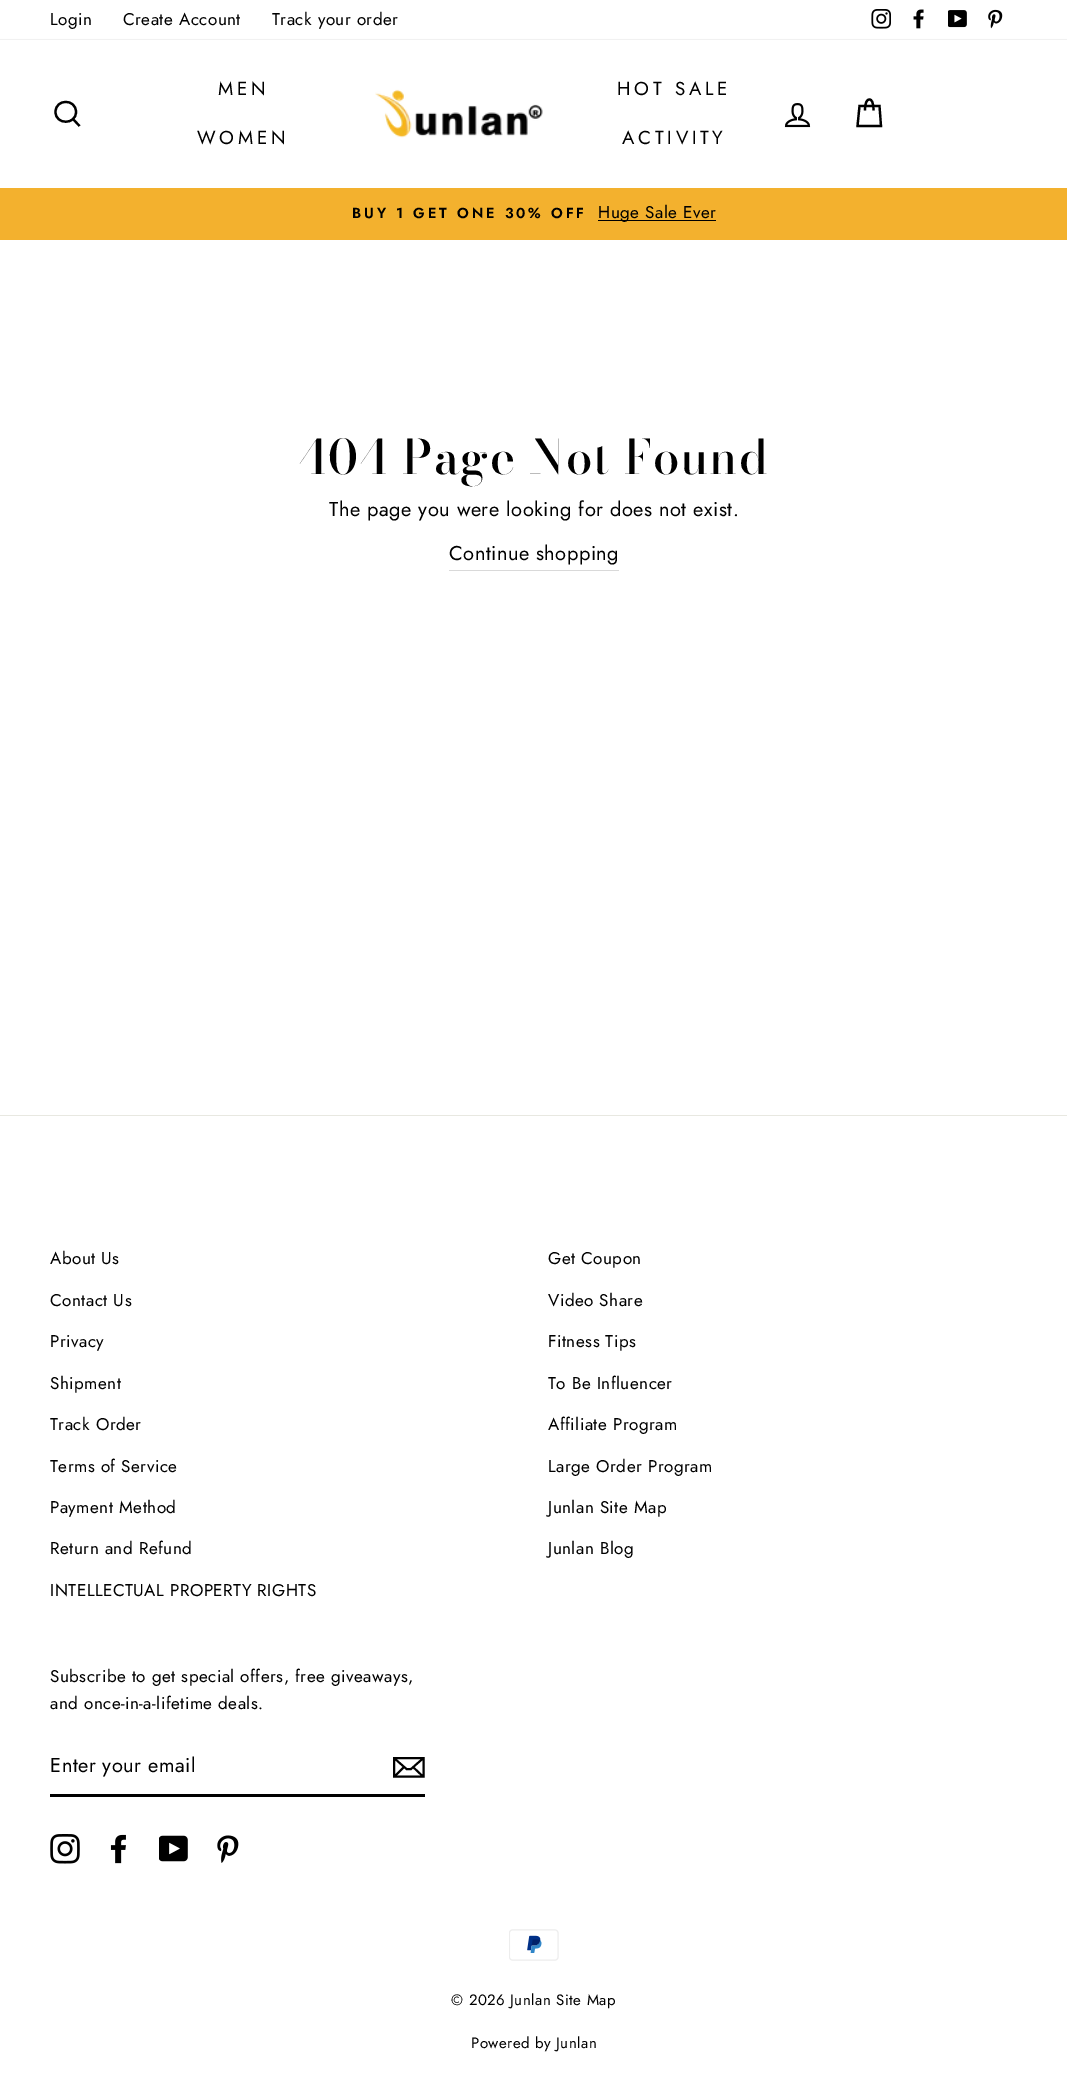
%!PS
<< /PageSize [1067 2089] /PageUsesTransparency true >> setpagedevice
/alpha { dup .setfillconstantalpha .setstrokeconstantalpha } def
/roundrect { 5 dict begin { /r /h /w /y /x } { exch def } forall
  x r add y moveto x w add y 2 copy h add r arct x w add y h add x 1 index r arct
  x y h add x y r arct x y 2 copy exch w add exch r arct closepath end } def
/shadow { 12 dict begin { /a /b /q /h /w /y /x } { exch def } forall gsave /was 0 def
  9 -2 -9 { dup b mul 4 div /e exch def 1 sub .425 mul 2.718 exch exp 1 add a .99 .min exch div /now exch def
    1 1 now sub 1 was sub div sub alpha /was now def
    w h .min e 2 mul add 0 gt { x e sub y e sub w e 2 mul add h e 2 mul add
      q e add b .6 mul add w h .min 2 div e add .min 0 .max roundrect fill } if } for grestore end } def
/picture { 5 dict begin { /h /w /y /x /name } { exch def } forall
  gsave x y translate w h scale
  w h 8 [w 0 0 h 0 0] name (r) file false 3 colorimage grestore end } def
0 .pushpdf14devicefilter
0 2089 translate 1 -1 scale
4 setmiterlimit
1 setgray
0 0 1067 2089 rectfill
/Jost-Regular [17 0 0 -17 0 0] selectfont
0 setgray
50 25 moveto 0.5 0 (Login) ashow
123 25 moveto 0.5 0 (Create Account) ashow
272 25 moveto 0.5 0 (Track your order) ashow
(img1.rgb) 871 9 20 20 picture
(img2.rgb) 913 9 11 20 picture
(img3.rgb) 948 10 19 18 picture
(img4.rgb) 988 9 15 20 picture
0 40 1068 148 0 0.5 0.2 shadow
1 setgray
0 40 1067 148 rectfill
0 setgray
2.2 setlinewidth
newpath 76 112 moveto 76 125 55.5 125 55.5 112 curveto 55.5 98.5 76 98.5 76 112 curveto closepath 79.5 126 moveto 73 119 lineto stroke
/Jost-Regular [18.75 0 0 -18.75 0 0] selectfont
218 95 moveto 3.75 0 (MEN) ashow
197 144 moveto 3.75 0 (WOMEN) ashow
(img5.rgb) 375 89 168 49 picture
617 95 moveto 3.75 0 (HOT SALE) ashow
622 144 moveto 3.75 0 (ACTIVITY) ashow
(img6.rgb) 784 103 27 25 picture
newpath 865 110.5 moveto 865 102 867 99.5 869.5 99.5 curveto 871.5 99.5 873.5 102 873.5 110.5 curveto 859.5 106 moveto 879.5 106 lineto 881 126 lineto 857.5 126 lineto closepath stroke
0.953 0.694 0.18 setrgbcolor
0 188 1067 52 rectfill
/Jost-SemiBold [14.5 0 0 -14.5 0 0] selectfont
0 setgray
352 218 moveto 2.9 0 (BUY 1 GET ONE 30% OFF) ashow
598 220 118 1 rectfill
/Jost-Regular [17 0 0 -17 0 0] selectfont
598 218 moveto 0.5 0 (Huge Sale Ever) ashow
/BodoniModa-Medium [47.5 0 0 -47.5 0 0] selectfont
298 474 moveto 1.2 0 (404 Page Not Found) ashow
/Jost-Regular [20 0 0 -20 0 0] selectfont
329 516 moveto 0.5 0 (The page you were looking for does not exist.) ashow
0.851 setgray
449 570 170 1 rectfill
0 setgray
449 560 moveto 0.5 0 (Continue shopping) ashow
0.91 0.91 0.882 setrgbcolor
0 1115 1067 1 rectfill
/Jost-Regular [17 0 0 -17 0 0] selectfont
0 setgray
50 1264 moveto 0.5 0 (About Us) ashow
50 1306 moveto 0.5 0 (Contact Us) ashow
50 1347 moveto 0.5 0 (Privacy) ashow
50 1389 moveto 0.5 0 (Shipment) ashow
50 1430 moveto 0.5 0 (Track Order) ashow
50 1472 moveto 0.5 0 (Terms of Service) ashow
50 1513 moveto 0.5 0 (Payment Method) ashow
50 1554 moveto 0.5 0 (Return and Refund) ashow
50 1596 moveto 0.5 0 (INTELLECTUAL PROPERTY RIGHTS) ashow
548 1264 moveto 0.5 0 (Get Coupon) ashow
548 1306 moveto 0.5 0 (Video Share) ashow
548 1347 moveto 0.5 0 (Fitness Tips) ashow
548 1389 moveto 0.5 0 (To Be Influencer) ashow
548 1430 moveto 0.5 0 (Affiliate Program) ashow
548 1472 moveto 0.5 0 (Large Order Program) ashow
548 1513 moveto 0.5 0 (Junlan Site Map) ashow
548 1554 moveto 0.5 0 (Junlan Blog) ashow
50 1682 moveto 0.5 0 (Subscribe to get special offers, free giveaways,) ashow
50 1709 moveto 0.5 0 (and once-in-a-lifetime deals.) ashow
50 1794 375 3 rectfill
/Jost-Regular [20 0 0 -20 0 0] selectfont
50 1772 moveto 0.5 0 (Enter your email) ashow
1.9 setlinewidth
newpath 423.5 1776.5 moveto 394 1776.5 lineto 394 1758 lineto 423.5 1758 lineto closepath 394 1758 moveto 406.5 1769 lineto 411 1769 lineto 423.5 1758 lineto 404 1767 moveto 394.5 1776.5 lineto 423 1776.5 moveto 413 1767 lineto stroke
(img7.rgb) 50 1834 30 30 picture
(img8.rgb) 110 1834 16 30 picture
(img9.rgb) 159 1835 29 27 picture
(img10.rgb) 217 1835 22 28 picture
(img11.rgb) 509 1929 50 32 picture
/Jost-Regular [15 0 0 -15 0 0] selectfont
451 2005 moveto 0.5 0 (© 2026 Junlan Site Map) ashow
471 2048 moveto 0.5 0 (Powered by Junlan) ashow
.poppdf14devicefilter showpage
